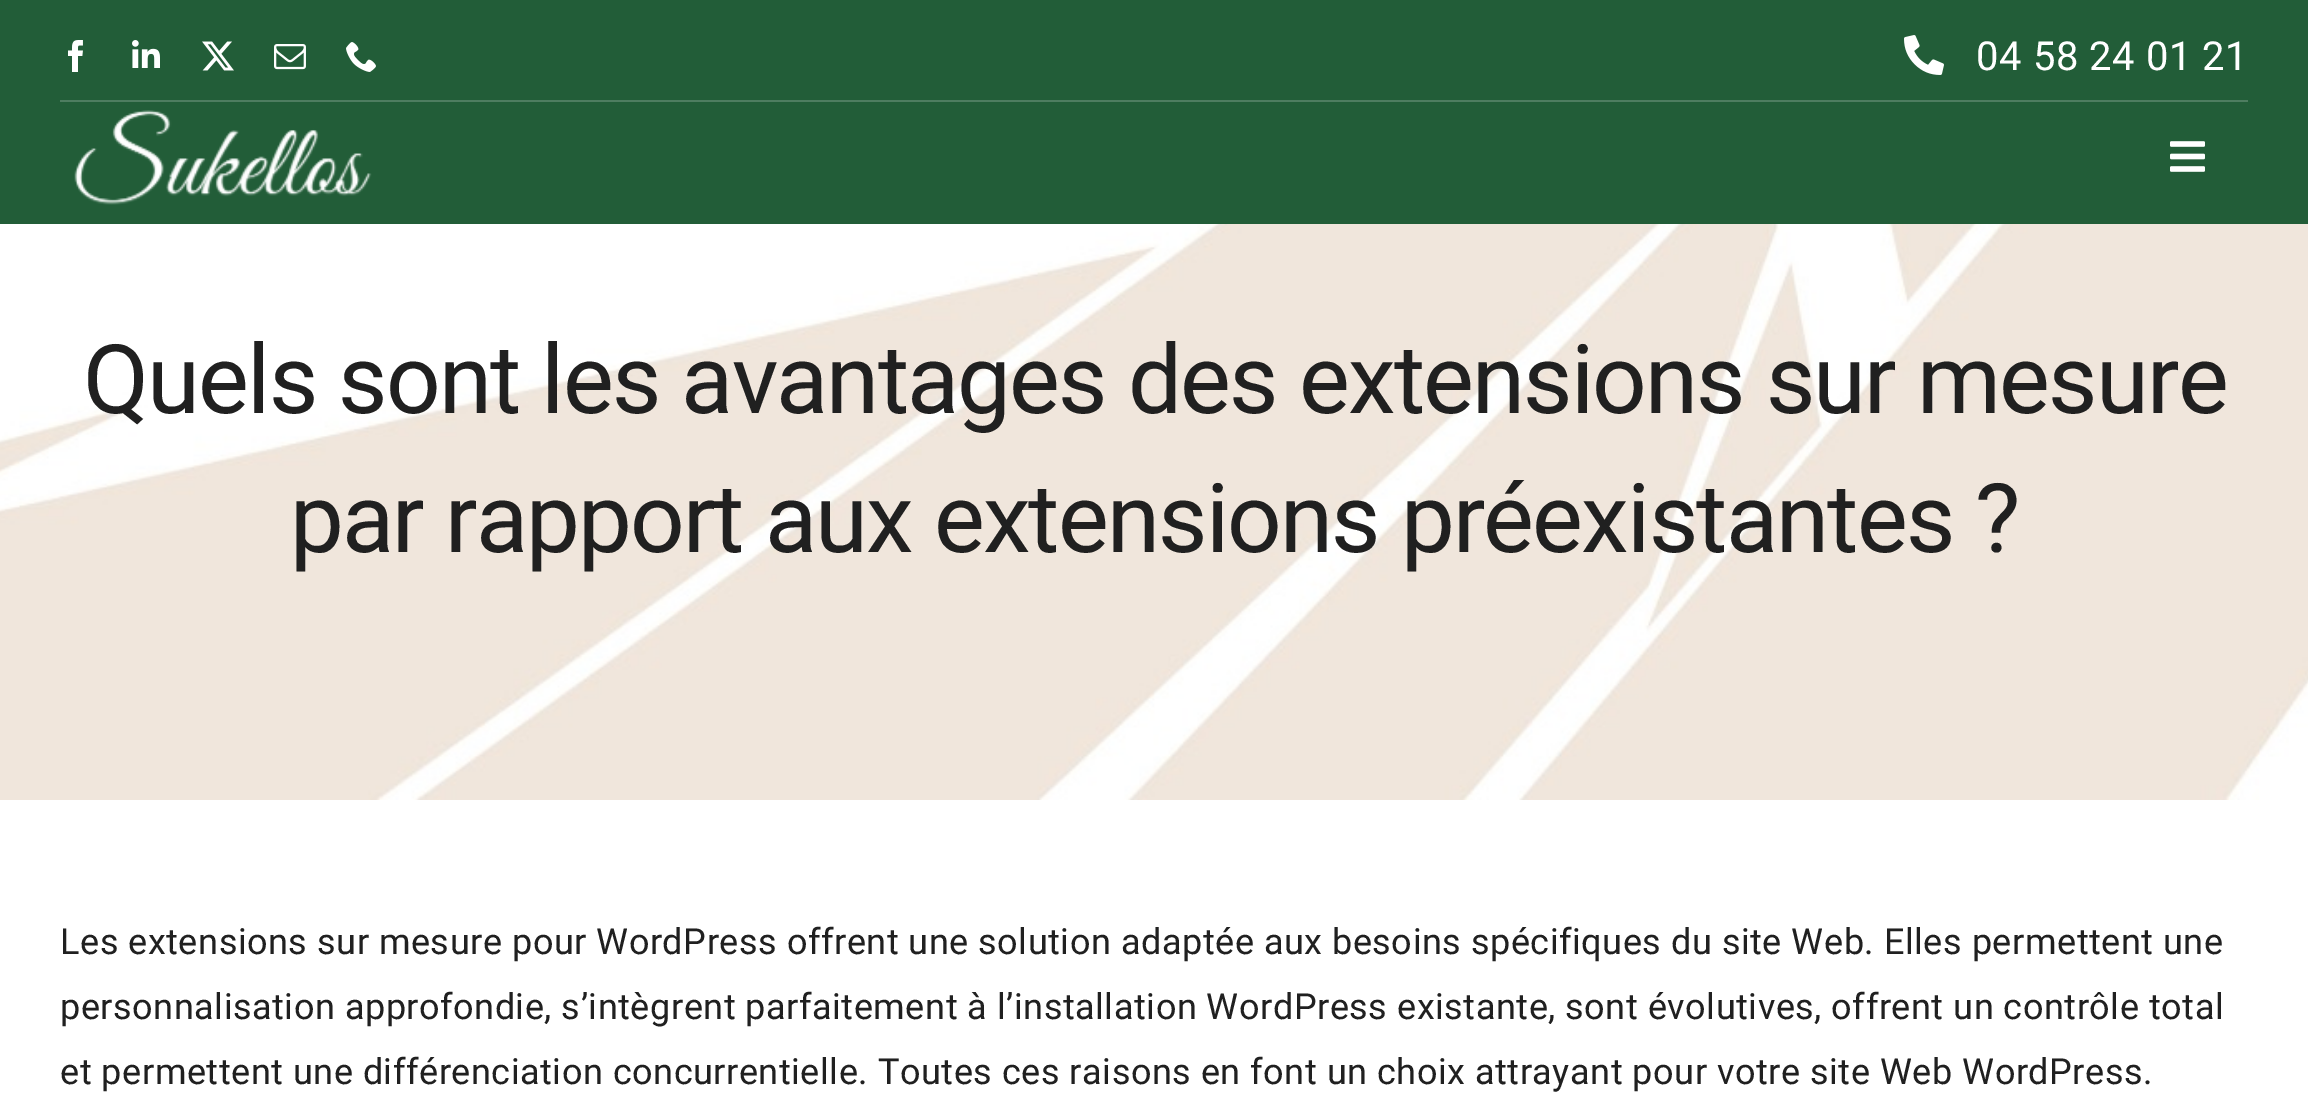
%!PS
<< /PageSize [2308 1093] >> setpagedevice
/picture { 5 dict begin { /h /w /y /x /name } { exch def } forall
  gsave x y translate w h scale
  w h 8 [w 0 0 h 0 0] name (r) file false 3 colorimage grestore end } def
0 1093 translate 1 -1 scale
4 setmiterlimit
1 setgray
0 0 2308 1093 rectfill
0.133 0.365 0.22 setrgbcolor
0 0 2308 224 rectfill
0.306 0.49 0.376 setrgbcolor
60 100 2188 2 rectfill
(img1.rgb) 68 40 15 32 picture
(img2.rgb) 132 40 28 28 picture
(img3.rgb) 202 41 32 30 picture
(img4.rgb) 274 44 32 26 picture
(img5.rgb) 346 42 30 30 picture
(img6.rgb) 1904 35 40 40 picture
/Roboto-Regular [40 0 0 -40 0 0] selectfont
1 setgray
1976 70 moveto 0.54 0 (04 58 24 01 21) ashow
(img7.rgb) 74 110 298 95 picture
(img8.rgb) 2170 141 35 31 picture
(img9.rgb) 0 224 2308 576 picture
/Roboto-Regular [96 0 0 -96 0 0] selectfont
0.125 setgray
83 413 moveto -1.9 0 (Quels sont les avantages des extensions sur mesure) ashow
290 552 moveto -1.9 0 (par rapport aux extensions préexistantes ?) ashow
/Roboto-Regular [36 0 0 -36 0 0] selectfont
60 954 moveto 0.54 0 (Les extensions sur mesure pour WordPress offrent une solution adaptée aux besoins spécifiques du site Web. Elles permettent une) ashow
60 1019 moveto 0.54 0 (personnalisation approfondie, s’intègrent parfaitement à l’installation WordPress existante, sont évolutives, offrent un contrôle total) ashow
60 1084 moveto 0.54 0 (et permettent une différenciation concurrentielle. Toutes ces raisons en font un choix attrayant pour votre site Web WordPress.) ashow
showpage
